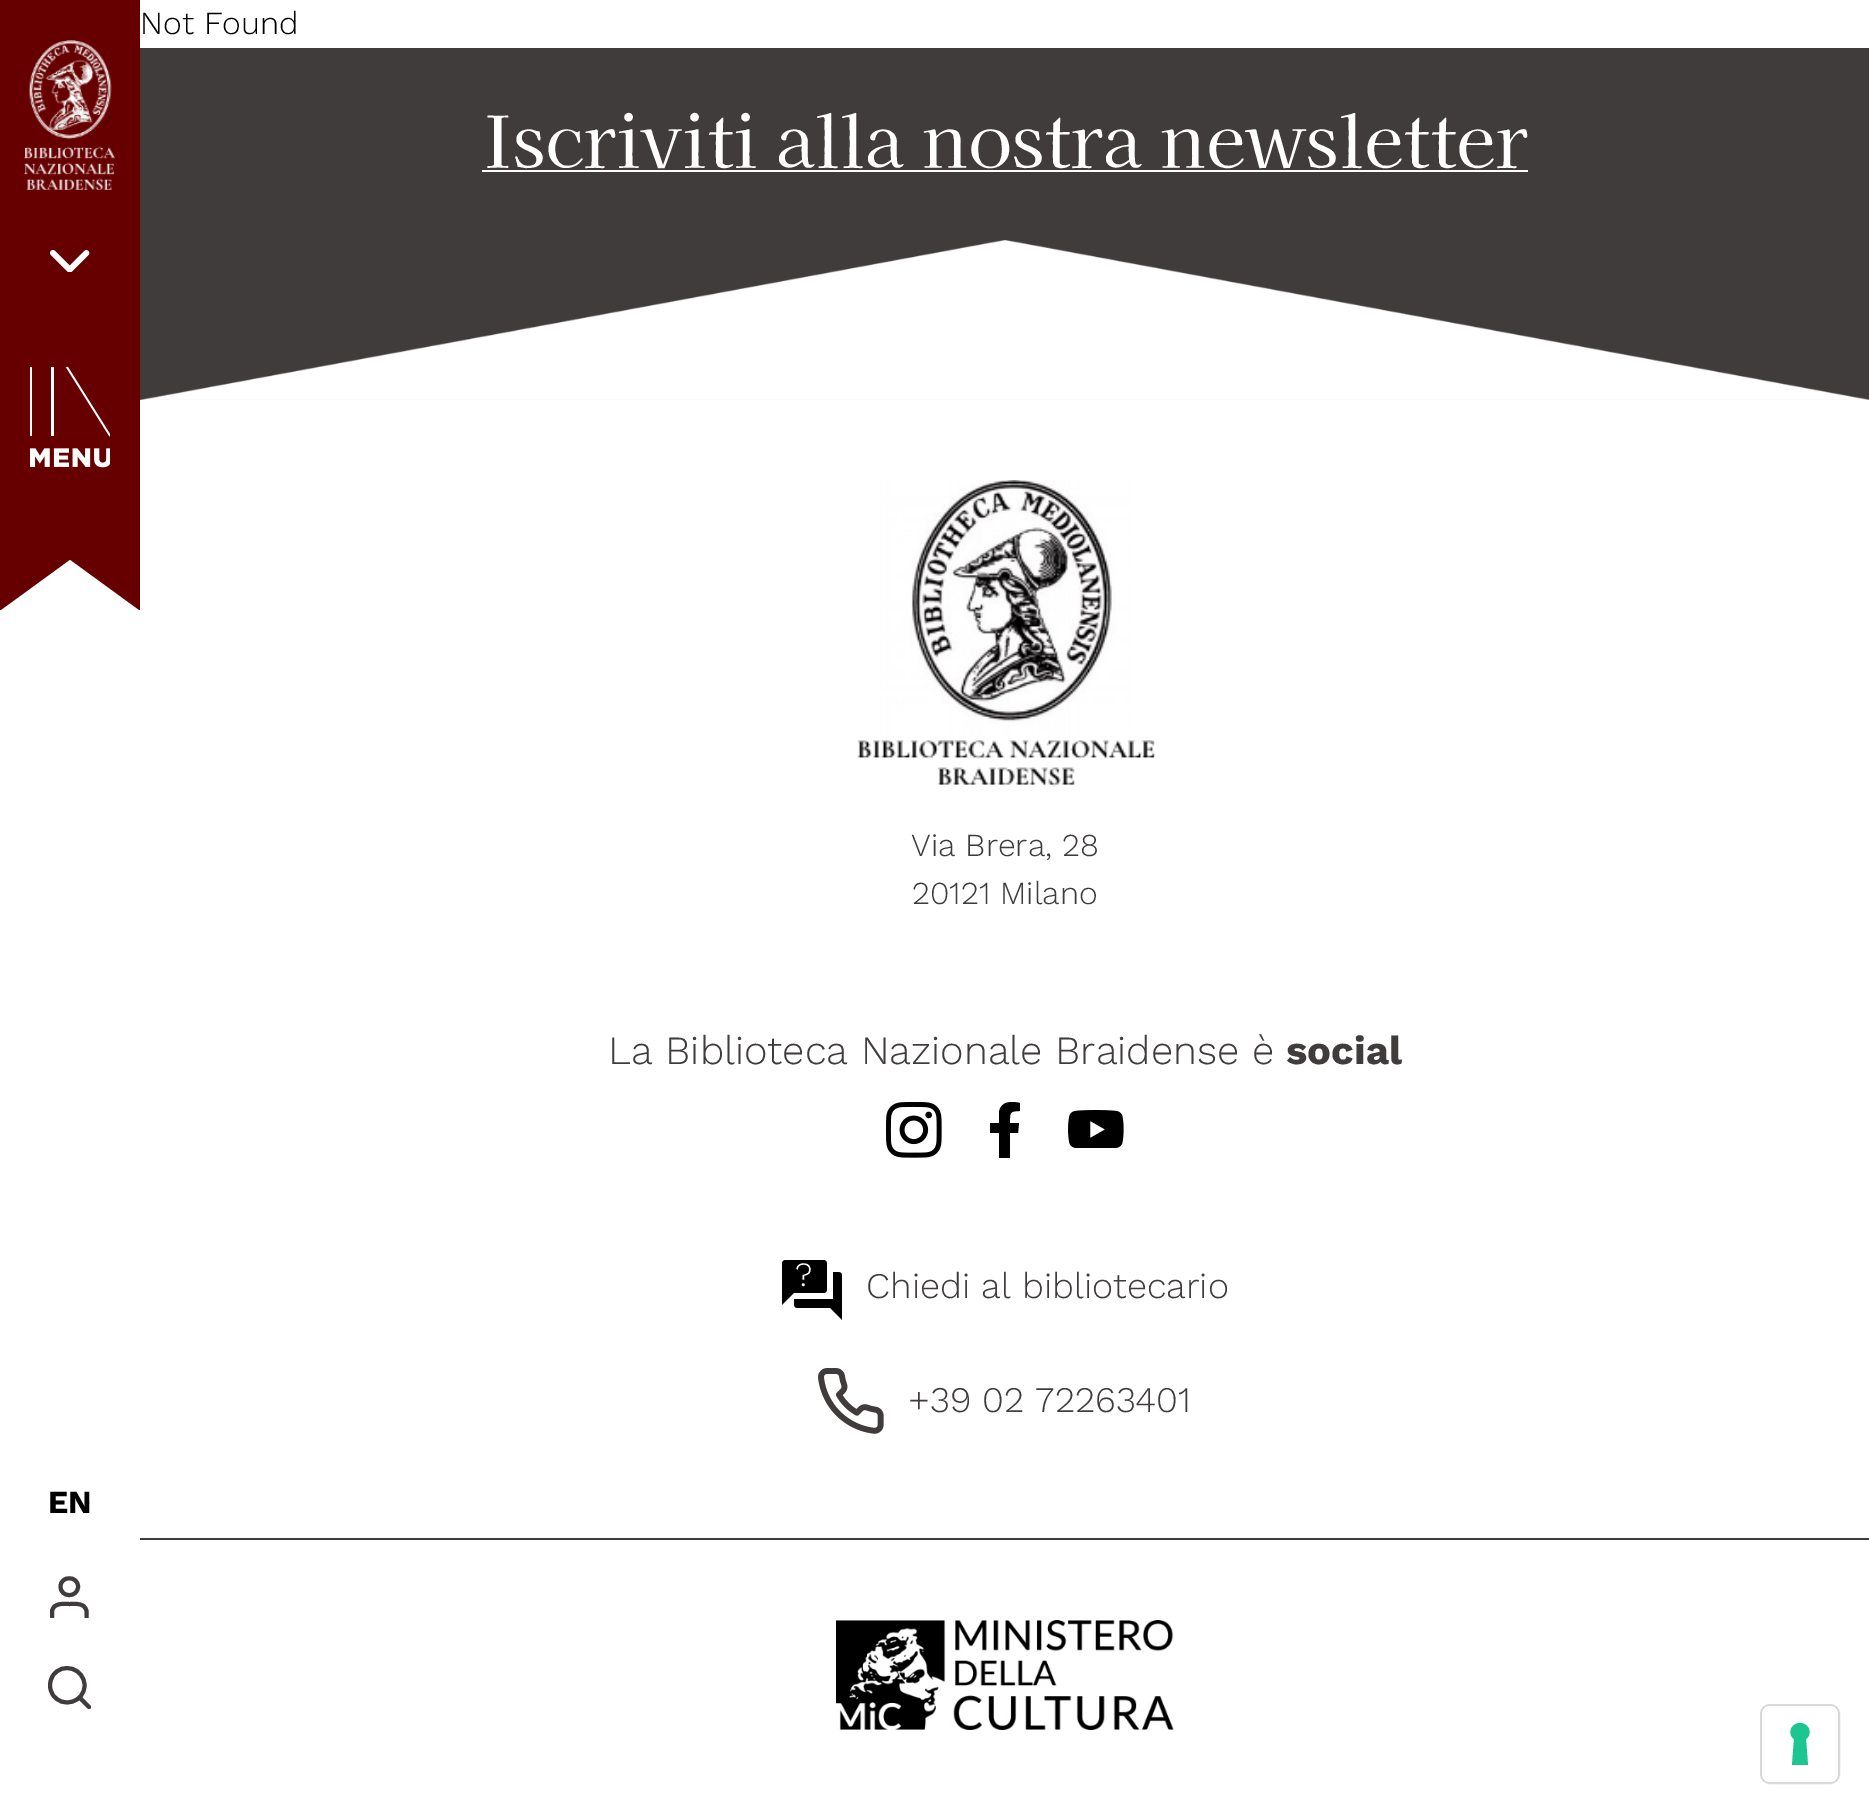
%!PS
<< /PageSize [1869 1814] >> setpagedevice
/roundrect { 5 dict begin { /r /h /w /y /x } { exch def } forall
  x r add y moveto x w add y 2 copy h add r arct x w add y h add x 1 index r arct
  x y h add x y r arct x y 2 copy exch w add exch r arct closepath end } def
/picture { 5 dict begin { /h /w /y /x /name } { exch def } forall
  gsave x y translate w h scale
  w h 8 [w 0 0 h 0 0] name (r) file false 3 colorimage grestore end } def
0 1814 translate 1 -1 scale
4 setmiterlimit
1 setgray
0 0 1869 1814 rectfill
/WorkSans-Light [32 0 0 -32 0 0] selectfont
0 setgray
140 34 moveto (Not Found) show
0.255 0.235 0.235 setrgbcolor
140 48 1729 352 rectfill
/KaiseiTokumin-Regular [72 0 0 -72 0 0] selectfont
1 setgray
483 168 moveto (Iscriviti alla nostra newsletter) show
482 170 1046 2 rectfill
(img1.rgb) 140 240 1729 160 picture
(img2.rgb) 857 480 299 307 picture
/WorkSans-Light [32 0 0 -32 0 0] selectfont
0.255 0.235 0.235 setrgbcolor
911 856 moveto (Via Brera, 28) show
912 904 moveto (20121 Milano) show
/WorkSans-Light [40 0 0 -40 0 0] selectfont
608 1064 moveto (La Biblioteca Nazionale Braidense è) show
/WorkSans-Bold [40 0 0 -40 0 0] selectfont
1286 1064 moveto (social) show
(img3.rgb) 886 1102 56 56 picture
0 setgray
newpath 1018 1133 moveto 1019 1123 lineto 1010 1123 lineto 1010 1113 1009 1111 1020 1111 curveto 1020 1103 lineto 1011 1101 1001 1101 999 1112 curveto 999 1123 lineto 990 1123 lineto 990 1133 lineto 999 1133 lineto 999 1158 lineto 1010 1158 lineto 1010 1133 lineto closepath fill
(img4.rgb) 1068 1110 56 38 picture
(img5.rgb) 782 1260 60 60 picture
/WorkSans-Light [34 0 0 -34 0 0] selectfont
1 setgray
795 1286 moveto (?) show
/WorkSans-Light [36 0 0 -36 0 0] selectfont
0.255 0.235 0.235 setrgbcolor
866 1298 moveto (Chiedi al bibliotecario) show
(img6.rgb) 818 1368 66 66 picture
908 1412 moveto (+39 02 72263401) show
140 1538 1729 2 rectfill
(img7.rgb) 836 1620 338 110 picture
0.4 0 0 setrgbcolor
0 0 140 610 rectfill
(img8.rgb) 24 40 91 150 picture
(img9.rgb) 50 250 40 22 picture
(img10.rgb) 30 366 80 102 picture
gsave
0 560 140 50 rectclip
1 setgray
newpath 70 560 moveto 140 611 lineto 0 611 lineto closepath fill
grestore
/WorkSans-Bold [32 0 0 -32 0 0] selectfont
0 setgray
48 1513 moveto (EN) show
gsave
50 1576 40 42 rectclip
0.255 0.235 0.235 setrgbcolor
4 setlinewidth
1 setlinecap
1 setlinejoin
newpath 86.5 1617 moveto 86.5 1611 lineto 84.5 1602.5 75.5 1604 69.5 1604 curveto 63 1604 54 1602.5 52 1611 curveto 52 1617 lineto stroke
grestore
0.255 0.235 0.235 setrgbcolor
4 setlinewidth
1 setlinecap
1 setlinejoin
newpath 78 1586.5 moveto 78 1598 60.5 1598 60.5 1586.5 curveto 60.5 1575.5 78 1575.5 78 1586.5 curveto closepath stroke
newpath 84.5 1685.5 moveto 84.5 1702 62.5 1709 53 1695 curveto 51 1692 50 1688.5 50 1685.5 curveto 50 1682 51 1678.5 53 1675.5 curveto 62.5 1661.5 84.5 1668.5 84.5 1685.5 curveto closepath 89 1707 moveto 79.5 1697.5 lineto stroke
0.851 setgray
2 setlinewidth
0 setlinecap
0 setlinejoin
1761 1705 78 78 9 roundrect stroke
1 setgray
1762 1706 76 76 8 roundrect fill
0.11 0.776 0.569 setrgbcolor
newpath 1800 1723 moveto 1809 1723 1813 1734 1806 1739 curveto 1808 1765 lineto 1792 1765 lineto 1794 1739 lineto 1787 1734 1791 1723 1800 1723 curveto closepath eofill
showpage
